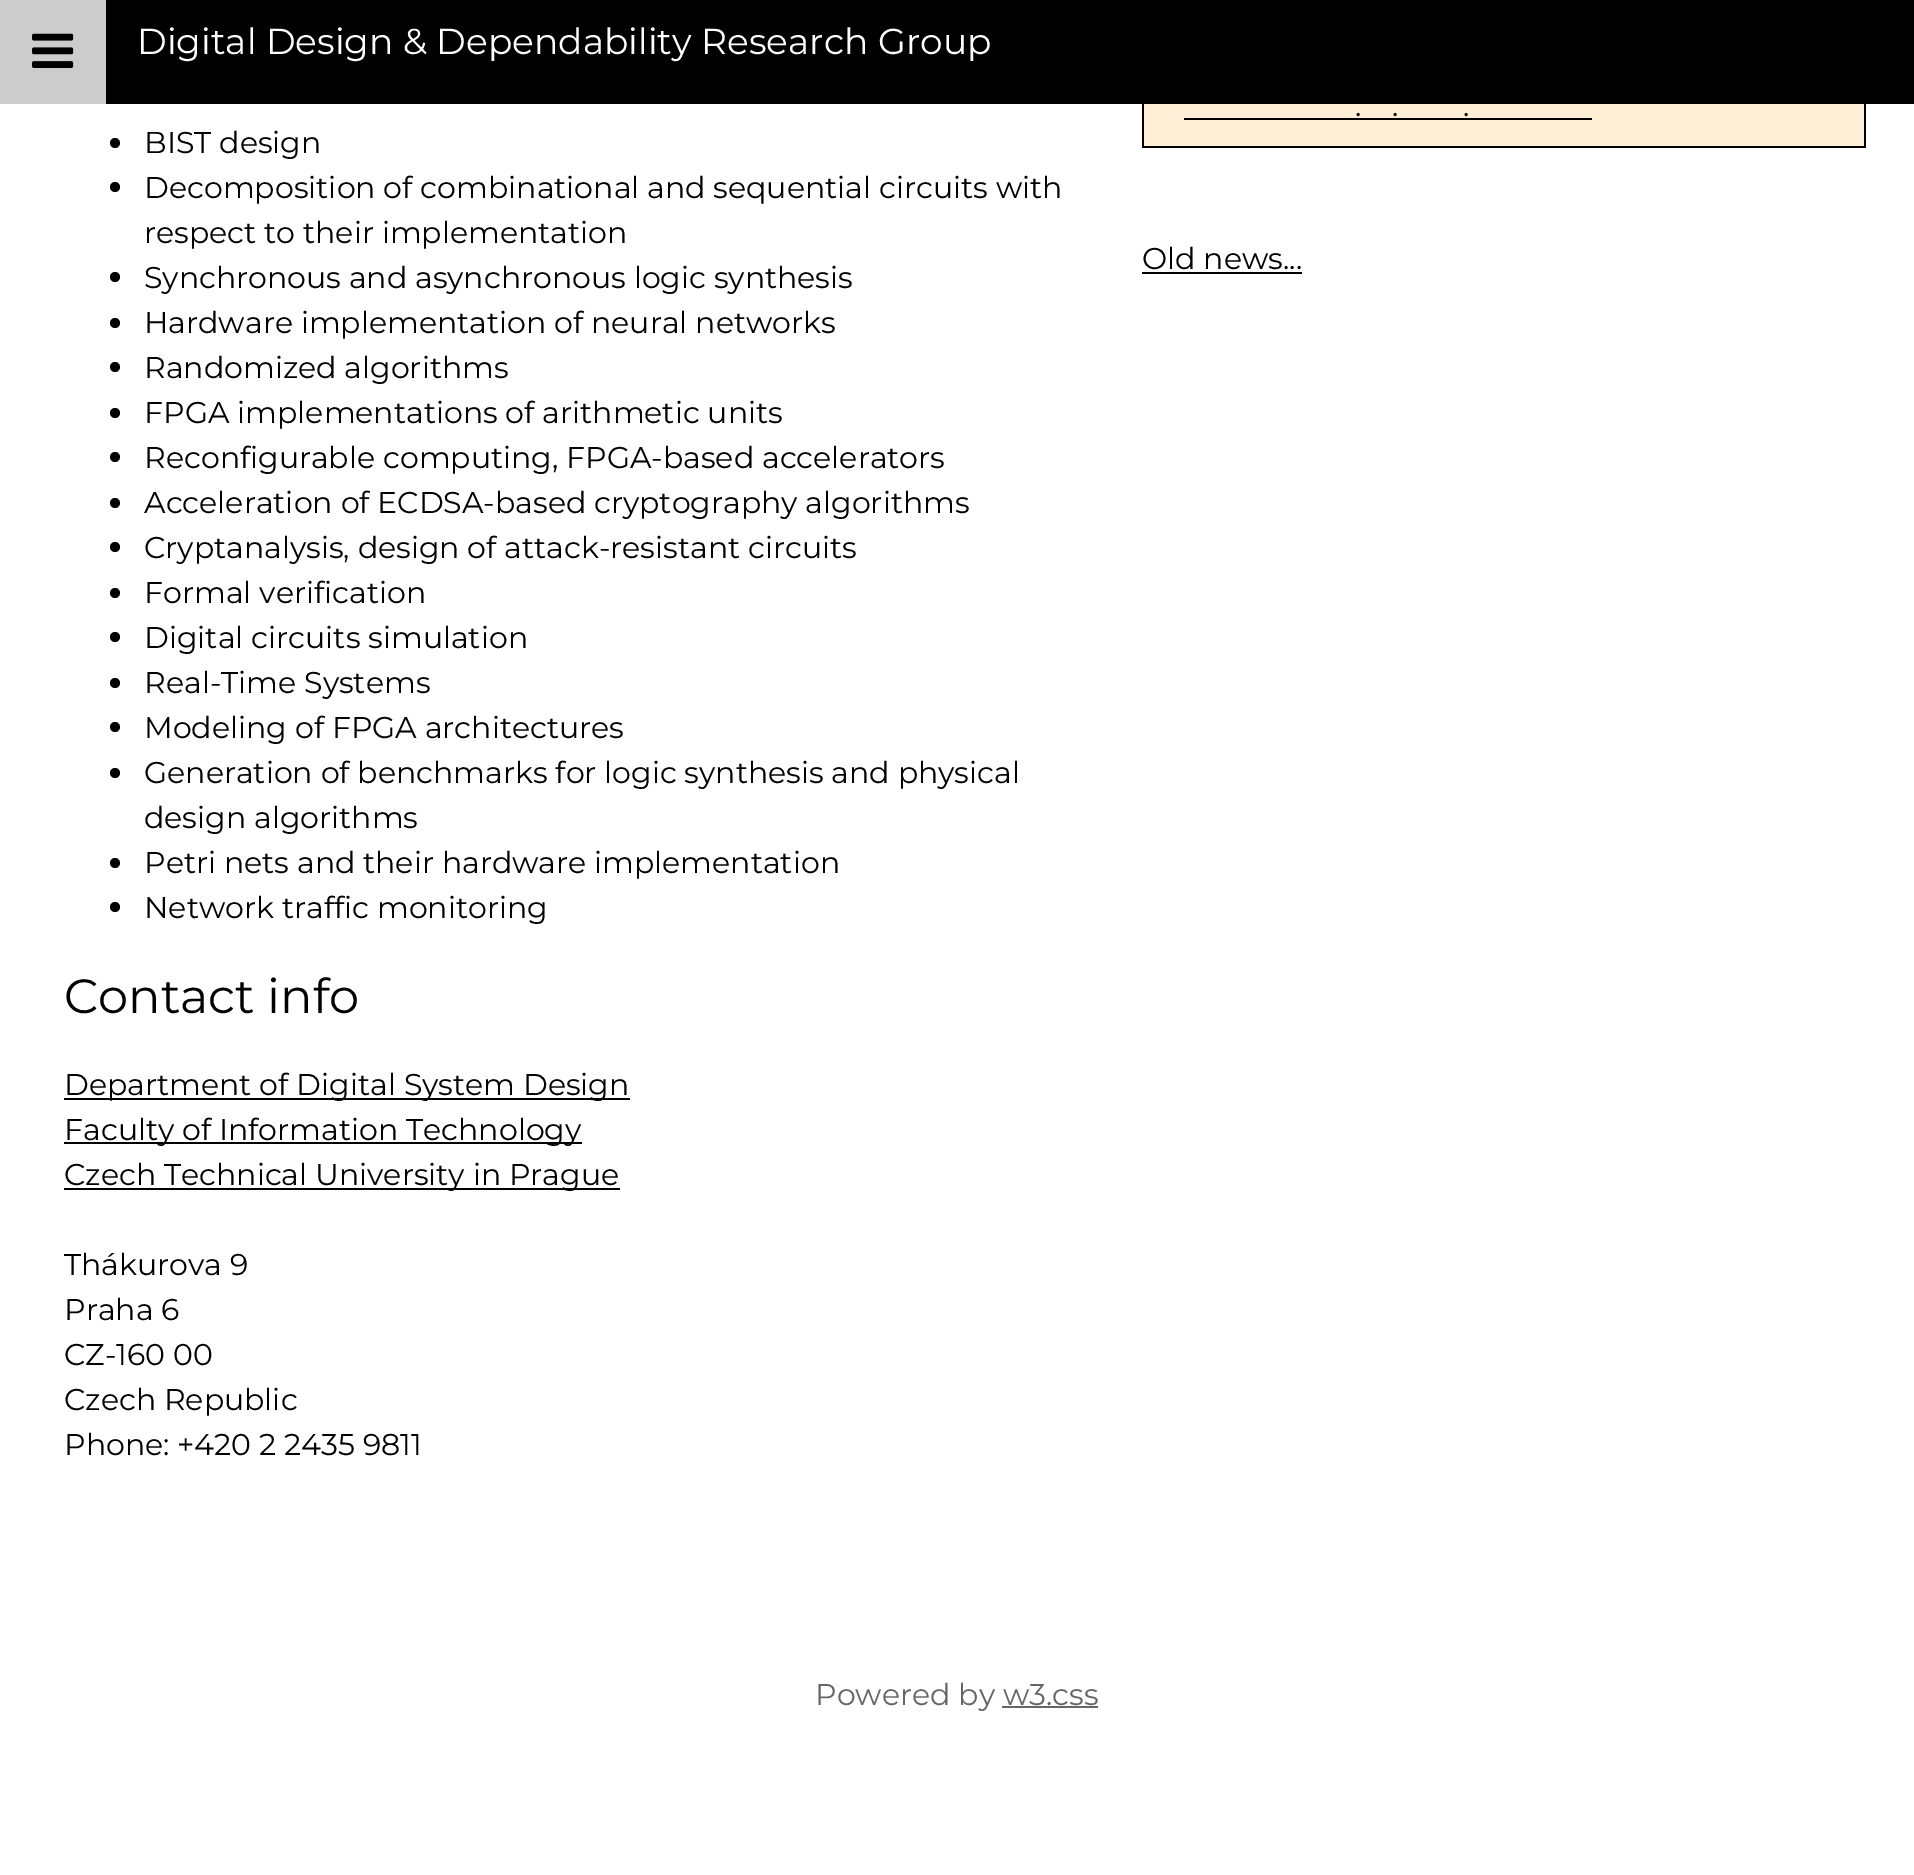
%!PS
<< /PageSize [1914 1875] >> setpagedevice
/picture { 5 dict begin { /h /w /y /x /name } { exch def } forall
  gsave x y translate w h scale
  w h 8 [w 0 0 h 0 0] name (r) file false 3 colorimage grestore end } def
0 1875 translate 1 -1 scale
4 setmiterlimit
1 setgray
0 0 1914 1875 rectfill
0 setgray
106 0 1808 104 rectfill
0.8 setgray
0 0 106 104 rectfill
(img1.rgb) 32 33 42 35 picture
/Montserrat-Thin [36 0 0 -36 0 0] selectfont
1 setgray
137 54 moveto (Digital Design & Dependability Research Group) show
0 setgray
newpath 115 143 5 0 360 arc closepath fill
/Montserrat-Thin [30 0 0 -30 0 0] selectfont
144 153 moveto (BIST design) show
newpath 115 187 5 0 360 arc closepath fill
144 198 moveto (Decomposition of combinational and sequential circuits with) show
144 243 moveto (respect to their implementation) show
newpath 115 277 5 0 360 arc closepath fill
144 288 moveto (Synchronous and asynchronous logic synthesis) show
newpath 115 323 5 0 360 arc closepath fill
144 333 moveto (Hardware implementation of neural networks) show
newpath 115 367 5 0 360 arc closepath fill
144 378 moveto (Randomized algorithms) show
newpath 115 413 5 0 360 arc closepath fill
144 423 moveto (FPGA implementations of arithmetic units) show
newpath 115 457 5 0 360 arc closepath fill
144 468 moveto (Reconfigurable computing, FPGA-based accelerators) show
newpath 115 503 5 0 360 arc closepath fill
144 513 moveto (Acceleration of ECDSA-based cryptography algorithms) show
newpath 115 547 5 0 360 arc closepath fill
144 558 moveto (Cryptanalysis, design of attack-resistant circuits) show
newpath 115 593 5 0 360 arc closepath fill
144 603 moveto (Formal verification) show
newpath 115 637 5 0 360 arc closepath fill
144 648 moveto (Digital circuits simulation) show
newpath 115 683 5 0 360 arc closepath fill
144 693 moveto (Real-Time Systems) show
newpath 115 727 5 0 360 arc closepath fill
144 738 moveto (Modeling of FPGA architectures) show
newpath 115 773 5 0 360 arc closepath fill
144 783 moveto (Generation of benchmarks for logic synthesis and physical) show
144 828 moveto (design algorithms) show
newpath 115 863 5 0 360 arc closepath fill
144 873 moveto (Petri nets and their hardware implementation) show
newpath 115 907 5 0 360 arc closepath fill
144 918 moveto (Network traffic monitoring) show
/Montserrat-Thin [48 0 0 -48 0 0] selectfont
64 1013 moveto (Contact info) show
64 1098 566 2 rectfill
/Montserrat-Thin [30 0 0 -30 0 0] selectfont
64 1095 moveto (Department of Digital System Design) show
64 1142 518 2 rectfill
64 1140 moveto (Faculty of Information Technology) show
64 1188 556 2 rectfill
64 1185 moveto (Czech Technical University in Prague) show
64 1275 moveto (Thákurova 9) show
64 1320 moveto (Praha 6) show
64 1365 moveto (CZ-160 00) show
64 1410 moveto (Czech Republic) show
64 1455 moveto (Phone: +420 2 2435 9811) show
1 0.937 0.843 setrgbcolor
1144 104 720 42 rectfill
0 setgray
1864 104 2 44 rectfill
1142 146 724 2 rectfill
1142 104 2 44 rectfill
1355 116 moveto (.) show
1184 118 408 2 rectfill
1392 116 moveto (.) show
1463 116 moveto (.) show
1142 269 moveto (Old news...) show
1142 272 160 2 rectfill
0.4 setgray
815 1705 moveto (Powered by w3.css) show
1002 1706 96 2 rectfill
showpage
